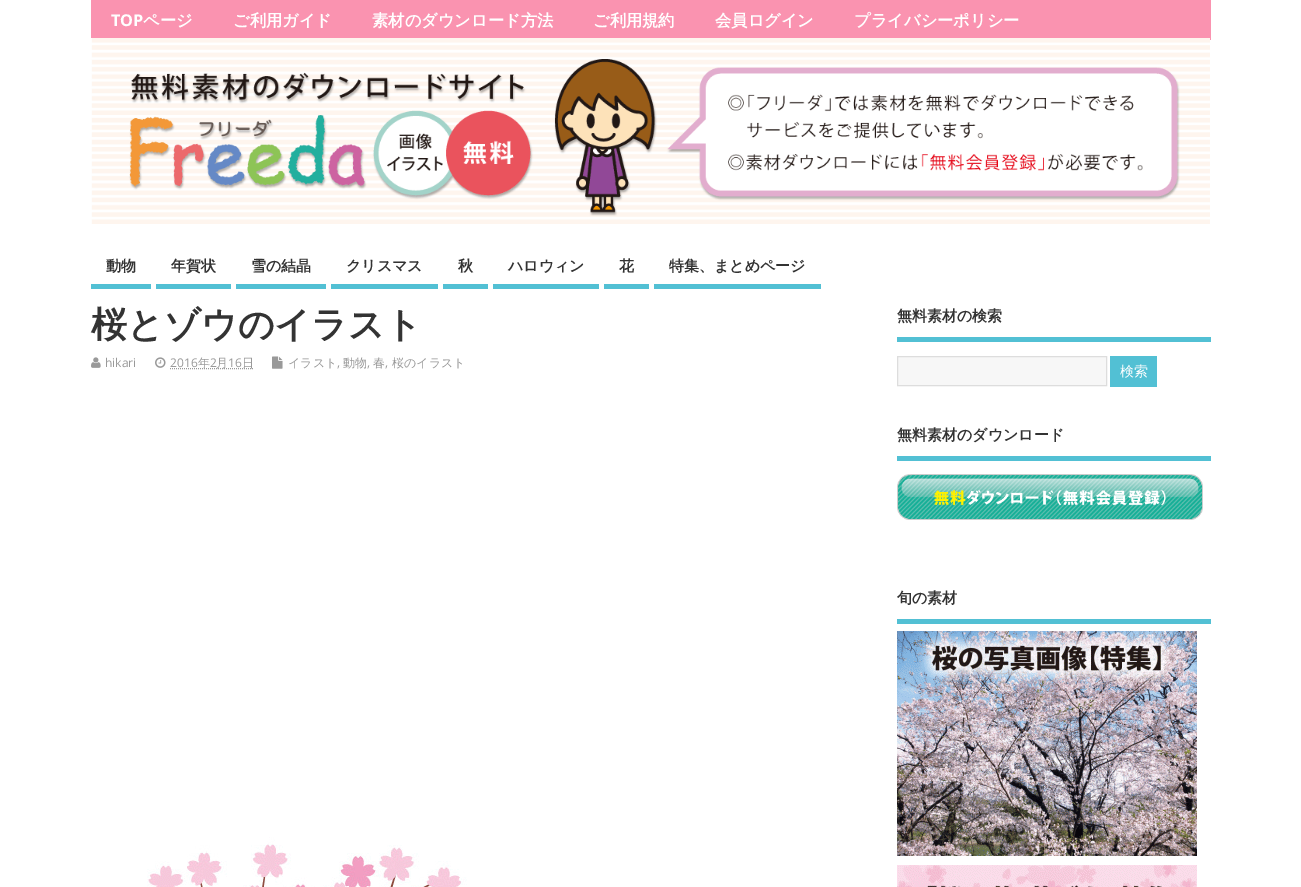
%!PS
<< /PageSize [1301 887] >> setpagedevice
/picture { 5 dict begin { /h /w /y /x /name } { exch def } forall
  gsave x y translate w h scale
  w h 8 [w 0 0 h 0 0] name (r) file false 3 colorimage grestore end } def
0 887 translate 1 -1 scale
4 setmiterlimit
1 setgray
0 0 1301 887 rectfill
0.98 0.576 0.69 setrgbcolor
91 0 1120 40 rectfill
/OpenSans-Bold [16.25 0 0 -16.25 0 0] selectfont
1 setgray
111 26 moveto (TOP) show
/WenQuanYiZenHei-Bold [16.25 0 0 -16.25 0 0] selectfont
143 26 moveto (ページ) show
233 26 moveto (ご利用ガイド) show
372 26 moveto (素材のダウンロード方法) show
593 26 moveto (ご利用規約) show
715 26 moveto (会員ログイン) show
854 26 moveto (プライバシーポリシー) show
(img1.rgb) 91 38 1119 186 picture
0.322 0.753 0.831 setrgbcolor
91 284 60 5 rectfill
/WenQuanYiZenHei-Bold [15 0 0 -15 0 0] selectfont
0.2 setgray
106 271 moveto (動物) show
0.322 0.753 0.831 setrgbcolor
156 284 75 5 rectfill
0.2 setgray
171 271 moveto (年賀状) show
0.322 0.753 0.831 setrgbcolor
236 284 90 5 rectfill
0.2 setgray
251 271 moveto (雪の結晶) show
0.322 0.753 0.831 setrgbcolor
331 284 107 5 rectfill
0.2 setgray
346 271 moveto (クリスマス) show
0.322 0.753 0.831 setrgbcolor
443 284 45 5 rectfill
0.2 setgray
458 271 moveto (秋) show
0.322 0.753 0.831 setrgbcolor
493 284 106 5 rectfill
0.2 setgray
508 271 moveto (ハロウィン) show
0.322 0.753 0.831 setrgbcolor
604 284 45 5 rectfill
0.2 setgray
619 271 moveto (花) show
0.322 0.753 0.831 setrgbcolor
654 284 167 5 rectfill
0.2 setgray
669 271 moveto (特集、まとめページ) show
/WenQuanYiZenHei-Bold [36 0 0 -36 0 0] selectfont
91 337 moveto (桜とゾウのイラスト) show
(img2.rgb) 91 357 10 11 picture
/OpenSans-Regular [12 0 0 -12 0 0] selectfont
0.6 setgray
105 367 moveto (hikari) show
(img3.rgb) 155 357 11 11 picture
170 367 moveto (2016) show
[1 1] 0 setdash
newpath 170 368.5 moveto 254 368.5 lineto stroke
/WenQuanYiZenHei-Medium [12 0 0 -12 0 0] selectfont
198 367 moveto (年) show
/OpenSans-Regular [12 0 0 -12 0 0] selectfont
210 367 moveto (2) show
/WenQuanYiZenHei-Medium [12 0 0 -12 0 0] selectfont
216 367 moveto (月) show
/OpenSans-Regular [12 0 0 -12 0 0] selectfont
228 367 moveto (16) show
/WenQuanYiZenHei-Medium [12 0 0 -12 0 0] selectfont
242 367 moveto (日) show
(img4.rgb) 272 356 11 13 picture
288 367 moveto (イラスト) show
/OpenSans-Regular [12 0 0 -12 0 0] selectfont
337 367 moveto (,) show
/WenQuanYiZenHei-Medium [12 0 0 -12 0 0] selectfont
343 367 moveto (動物) show
/OpenSans-Regular [12 0 0 -12 0 0] selectfont
367 367 moveto (,) show
/WenQuanYiZenHei-Medium [12 0 0 -12 0 0] selectfont
373 367 moveto (春) show
/OpenSans-Regular [12 0 0 -12 0 0] selectfont
385 367 moveto (,) show
/WenQuanYiZenHei-Medium [12 0 0 -12 0 0] selectfont
392 367 moveto (桜のイラスト) show
(img5.rgb) 147 837 320 50 picture
0.322 0.753 0.831 setrgbcolor
897 337 314 5 rectfill
/WenQuanYiZenHei-Bold [15 0 0 -15 0 0] selectfont
0.2 setgray
897 321 moveto (無料素材の検索) show
0.969 setgray
newpath 897.5 356.5 moveto 1106.5 356.5 lineto 1106.5 385.5 lineto 897.5 385.5 lineto closepath gsave fill grestore
0.867 setgray
[] 0 setdash
stroke
0.322 0.753 0.831 setrgbcolor
1110 356 47 31 rectfill
/WenQuanYiZenHei-Medium [14 0 0 -14 0 0] selectfont
1 setgray
1120 376 moveto (検索) show
0.322 0.753 0.831 setrgbcolor
897 456 314 5 rectfill
/WenQuanYiZenHei-Bold [15 0 0 -15 0 0] selectfont
0.2 setgray
897 440 moveto (無料素材のダウンロード) show
(img6.rgb) 897 474 306 46 picture
0.322 0.753 0.831 setrgbcolor
897 619 314 5 rectfill
0.2 setgray
897 603 moveto (旬の素材) show
(img7.rgb) 897 631 300 225 picture
(img8.rgb) 897 865 300 22 picture
showpage
